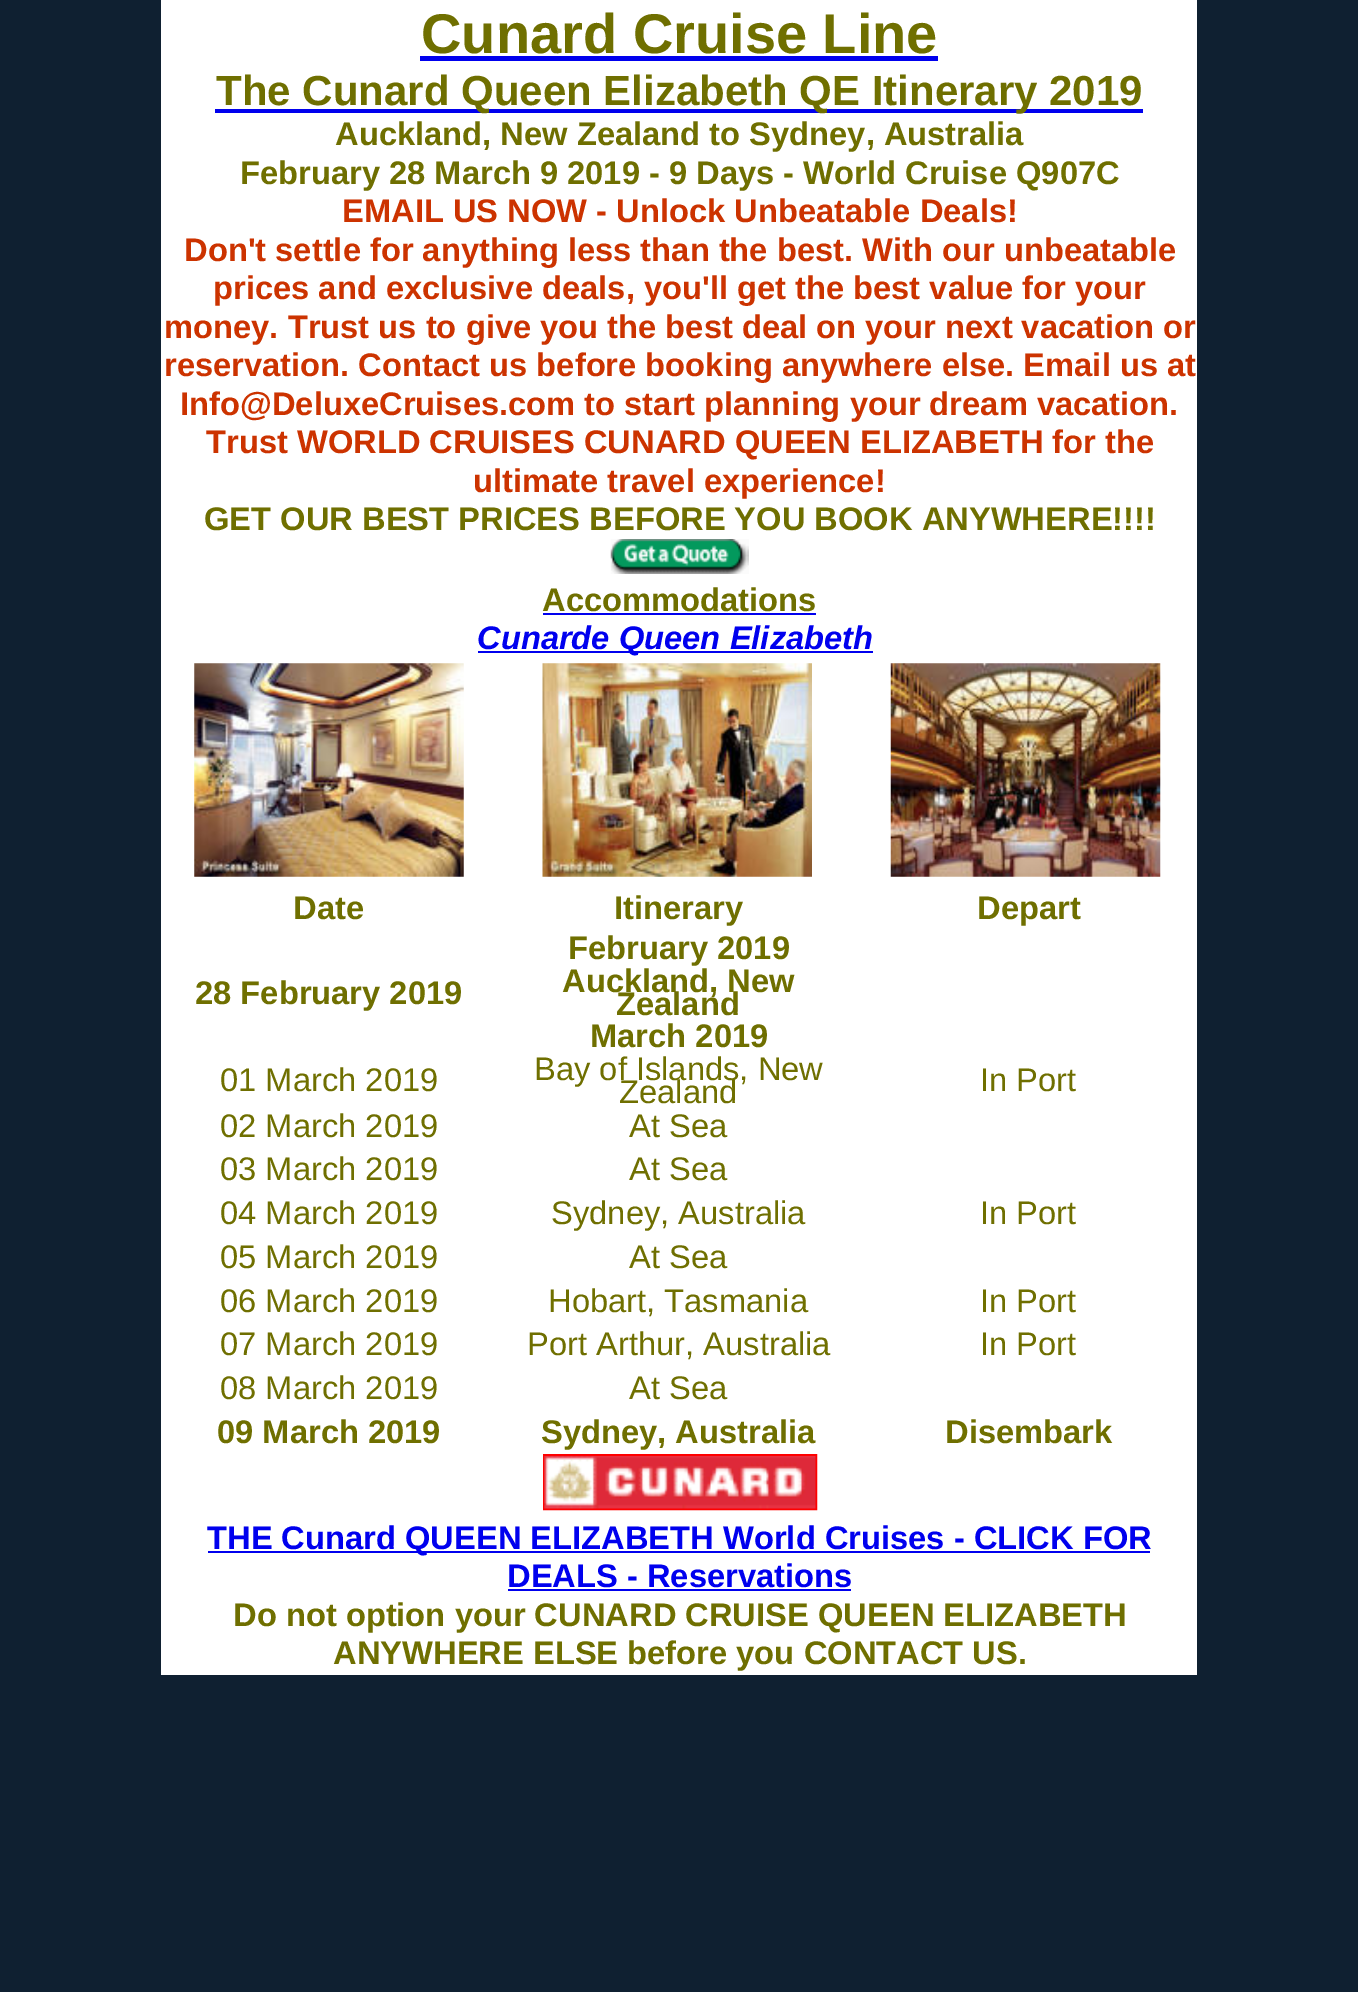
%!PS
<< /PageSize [1358 1992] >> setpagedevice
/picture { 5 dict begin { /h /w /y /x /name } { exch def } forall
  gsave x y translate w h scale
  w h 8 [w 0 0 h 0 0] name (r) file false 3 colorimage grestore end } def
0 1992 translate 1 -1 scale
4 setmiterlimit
0.059 0.125 0.192 setrgbcolor
0 0 1358 1992 rectfill
1 setgray
161 0 1036 2 rectfill
161 1673 1036 2 rectfill
161 0 2 1675 rectfill
163 2 1034 658 rectfill
/LiberationSans-Bold [56 0 0 -56 0 0] selectfont
0.435 0.435 0 setrgbcolor
421 53 moveto (Cunard Cruise Line) show
0 0 0.933 setrgbcolor
420 56 518 5 rectfill
215 109 928 4 rectfill
/LiberationSans-Bold [42 0 0 -42 0 0] selectfont
0.435 0.435 0 setrgbcolor
216 105 moveto (The Cunard Queen Elizabeth QE Itinerary 2019) show
/LiberationSans-Bold [32.7 0 0 -32.7 0 0] selectfont
335 145 moveto (Auckland, New Zealand to Sydney, Australia) show
240 184 moveto (February 28 March 9 2019 - 9 Days - World Cruise Q907C) show
0.8 0.2 0 setrgbcolor
342 222 moveto (EMAIL US NOW - Unlock Unbeatable Deals!) show
184 261 moveto (Don't settle for anything less than the best. With our unbeatable) show
213 299 moveto (prices and exclusive deals, you'll get the best value for your) show
164 338 moveto (money. Trust us to give you the best deal on your next vacation or) show
164 376 moveto (reservation. Contact us before booking anywhere else. Email us at) show
180 415 moveto (Info@DeluxeCruises.com to start planning your dream vacation.) show
206 453 moveto (Trust WORLD CRUISES CUNARD QUEEN ELIZABETH for the) show
473 492 moveto (ultimate travel experience!) show
0.435 0.435 0 setrgbcolor
204 530 moveto (GET OUR BEST PRICES BEFORE YOU BOOK ANYWHERE!!!!) show
(img1.rgb) 610 539 139 35 picture
542 611 moveto (Accommodations) show
0 0 0.933 setrgbcolor
543 613 273 2 rectfill
478 651 395 2 rectfill
/LiberationSans-BoldItalic [32.7 0 0 -32.7 0 0] selectfont
477 649 moveto (Cunarde Queen Elizabeth) show
1 setgray
163 660 1034 229 rectfill
(img2.rgb) 194 663 270 214 picture
(img3.rgb) 542 663 270 214 picture
(img4.rgb) 890 663 271 214 picture
163 889 1034 81 rectfill
/LiberationSans-Bold [32.7 0 0 -32.7 0 0] selectfont
0.435 0.435 0 setrgbcolor
293 919 moveto (Date) show
614 919 moveto (Itinerary) show
977 919 moveto (Depart) show
568 959 moveto (February 2019) show
1 setgray
163 970 1034 87 rectfill
0.435 0.435 0 setrgbcolor
195 1004 moveto (28 February 2019) show
562 992 moveto (Auckland, New) show
616 1015 moveto (Zealand) show
590 1047 moveto (March 2019) show
1 setgray
163 1057 1034 47 rectfill
/LiberationSans-Regular [32.7 0 0 -32.7 0 0] selectfont
0.435 0.435 0 setrgbcolor
220 1091 moveto (01 March 2019) show
534 1080 moveto (Bay of Islands, New) show
619 1103 moveto (Zealand) show
980 1091 moveto (In Port) show
1 setgray
163 1104 1034 44 rectfill
0.435 0.435 0 setrgbcolor
220 1137 moveto (02 March 2019) show
629 1137 moveto (At Sea) show
1 setgray
163 1148 1034 44 rectfill
0.435 0.435 0 setrgbcolor
220 1180 moveto (03 March 2019) show
629 1180 moveto (At Sea) show
1 setgray
163 1192 1034 44 rectfill
0.435 0.435 0 setrgbcolor
220 1224 moveto (04 March 2019) show
551 1224 moveto (Sydney, Australia) show
980 1224 moveto (In Port) show
1 setgray
163 1236 1034 43 rectfill
0.435 0.435 0 setrgbcolor
220 1268 moveto (05 March 2019) show
629 1268 moveto (At Sea) show
1 setgray
163 1279 1034 44 rectfill
0.435 0.435 0 setrgbcolor
220 1312 moveto (06 March 2019) show
548 1312 moveto (Hobart, Tasmania) show
980 1312 moveto (In Port) show
1 setgray
163 1323 1034 44 rectfill
0.435 0.435 0 setrgbcolor
220 1355 moveto (07 March 2019) show
527 1355 moveto (Port Arthur, Australia) show
980 1355 moveto (In Port) show
1 setgray
163 1367 1034 44 rectfill
0.435 0.435 0 setrgbcolor
220 1399 moveto (08 March 2019) show
629 1399 moveto (At Sea) show
1 setgray
163 1411 1034 262 rectfill
/LiberationSans-Bold [32.7 0 0 -32.7 0 0] selectfont
0.435 0.435 0 setrgbcolor
217 1443 moveto (09 March 2019) show
541 1443 moveto (Sydney, Australia) show
945 1443 moveto (Disembark) show
1 0 0 setrgbcolor
2 setlinewidth
544 1455 272 54 rectstroke
(img5.rgb) 544 1456 272 53 picture
0 0 0.933 setrgbcolor
208 1551 942 2 rectfill
207 1549 moveto (THE Cunard QUEEN ELIZABETH World Cruises - CLICK FOR) show
507 1587 moveto (DEALS - Reservations) show
508 1589 343 2 rectfill
0.435 0.435 0 setrgbcolor
233 1626 moveto (Do not option your CUNARD CRUISE QUEEN ELIZABETH) show
333 1664 moveto (ANYWHERE ELSE before you CONTACT US.) show
showpage
